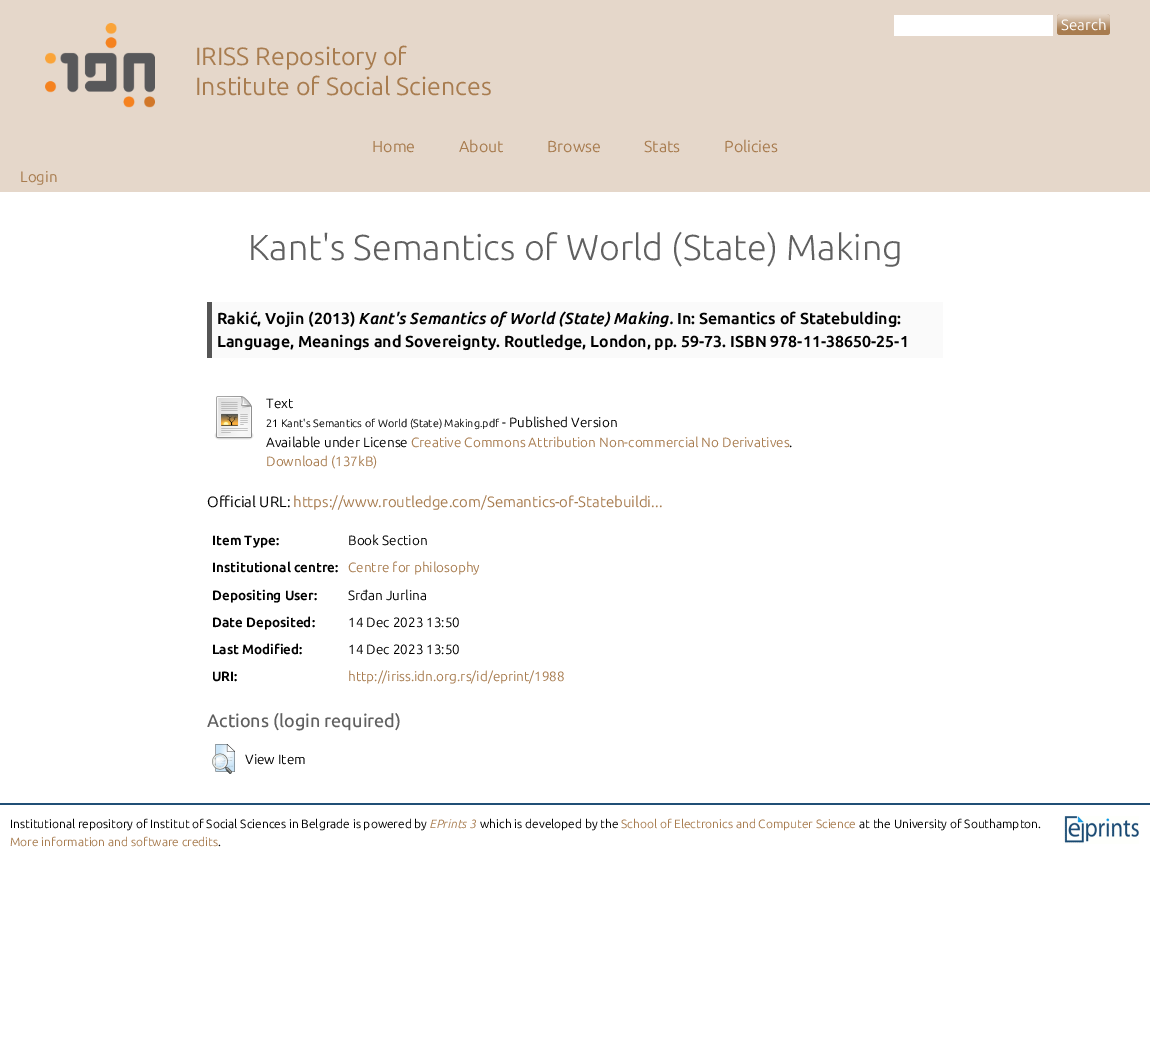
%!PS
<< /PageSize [1150 1052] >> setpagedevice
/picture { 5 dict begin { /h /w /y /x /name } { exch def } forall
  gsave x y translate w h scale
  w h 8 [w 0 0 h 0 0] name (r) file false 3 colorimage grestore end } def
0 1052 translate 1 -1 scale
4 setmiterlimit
1 setgray
0 0 1150 1052 rectfill
0.898 0.843 0.792 setrgbcolor
0 0 1150 192 rectfill
1 setgray
894 15 159 21 rectfill
(img1.rgb) 1057 14 53 21 picture
/Ubuntu-Regular [15 0 0 -15 0 0] selectfont
1061 30 moveto (Search) show
(img2.rgb) 45 23 110 85 picture
/Ubuntu-Regular [25 0 0 -25 0 0] selectfont
0.659 0.486 0.31 setrgbcolor
195 65 moveto (IRISS Repository of) show
195 95 moveto (Institute of Social Sciences) show
/Ubuntu-Regular [16 0 0 -16 0 0] selectfont
372 152 moveto (Home) show
459 152 moveto (About) show
547 152 moveto (Browse) show
644 152 moveto (Stats) show
724 152 moveto (Policies) show
/Ubuntu-Regular [15 0 0 -15 0 0] selectfont
20 182 moveto (Login) show
/Ubuntu-Light [36 0 0 -36 0 0] selectfont
0.376 setgray
248 260 moveto (Kant's Semantics of World \(State\) Making) show
0.98 setgray
212 302 731 56 rectfill
0.333 setgray
207 302 5 56 rectfill
/Ubuntu-Bold [16 0 0 -16 0 0] selectfont
0 setgray
217 324 moveto (Rakić, Vojin \(2013\)) show
/Ubuntu-BoldItalic [16 0 0 -16 0 0] selectfont
359 324 moveto (Kant's Semantics of World \(State\) Making.) show
/Ubuntu-Bold [16 0 0 -16 0 0] selectfont
677 324 moveto (In: Semantics of Statebulding:) show
217 347 moveto (Language, Meanings and Sovereignty. Routledge, London, pp. 59-73. ISBN 978-11-38650-25-1) show
(img3.rgb) 214 396 40 44 picture
/Ubuntu-Regular [13.5 0 0 -13.5 0 0] selectfont
266 408 moveto (Text) show
/Ubuntu-Regular [10.8 0 0 -10.8 0 0] selectfont
266 427 moveto (21 Kant's Semantics of World \(State\) Making.pdf) show
/Ubuntu-Regular [13.5 0 0 -13.5 0 0] selectfont
502 427 moveto (- Published Version) show
266 447 moveto (Available under License) show
0.659 0.486 0.31 setrgbcolor
411 447 moveto (Creative Commons Attribution Non-commercial No Derivatives) show
0 setgray
789 447 moveto (.) show
0.659 0.486 0.31 setrgbcolor
266 466 moveto (Download \(137kB\)) show
/Ubuntu-Regular [15 0 0 -15 0 0] selectfont
0 setgray
207 507 moveto (Official URL:) show
0.659 0.486 0.31 setrgbcolor
293 507 moveto (https://www.routledge.com/Semantics-of-Statebuildi...) show
/Ubuntu-Bold [13.5 0 0 -13.5 0 0] selectfont
0 setgray
212 545 moveto (Item Type:) show
/Ubuntu-Regular [13.5 0 0 -13.5 0 0] selectfont
348 545 moveto (Book Section) show
/Ubuntu-Bold [13.5 0 0 -13.5 0 0] selectfont
212 572 moveto (Institutional centre:) show
/Ubuntu-Regular [13.5 0 0 -13.5 0 0] selectfont
0.659 0.486 0.31 setrgbcolor
348 572 moveto (Centre for philosophy) show
/Ubuntu-Bold [13.5 0 0 -13.5 0 0] selectfont
0 setgray
212 600 moveto (Depositing User:) show
/Ubuntu-Regular [13.5 0 0 -13.5 0 0] selectfont
348 600 moveto (Srđan Jurlina) show
/Ubuntu-Bold [13.5 0 0 -13.5 0 0] selectfont
212 627 moveto (Date Deposited:) show
/Ubuntu-Regular [13.5 0 0 -13.5 0 0] selectfont
348 627 moveto (14 Dec 2023 13:50) show
/Ubuntu-Bold [13.5 0 0 -13.5 0 0] selectfont
212 654 moveto (Last Modified:) show
/Ubuntu-Regular [13.5 0 0 -13.5 0 0] selectfont
348 654 moveto (14 Dec 2023 13:50) show
/Ubuntu-Bold [13.5 0 0 -13.5 0 0] selectfont
212 681 moveto (URI:) show
/Ubuntu-Regular [13.5 0 0 -13.5 0 0] selectfont
0.659 0.486 0.31 setrgbcolor
348 681 moveto (http://iriss.idn.org.rs/id/eprint/1988) show
/Ubuntu-Medium [18 0 0 -18 0 0] selectfont
0.376 setgray
207 727 moveto (Actions \(login required\)) show
(img4.rgb) 212 744 23 30 picture
/Ubuntu-Regular [13.5 0 0 -13.5 0 0] selectfont
0 setgray
245 764 moveto (View Item) show
0.125 0.31 0.463 setrgbcolor
0 803 1150 2 rectfill
/Ubuntu-Regular [12 0 0 -12 0 0] selectfont
0 setgray
10 828 moveto (Institutional repository of Institut of Social Sciences in Belgrade is powered by) show
/Ubuntu-Italic [12 0 0 -12 0 0] selectfont
0.659 0.486 0.31 setrgbcolor
430 828 moveto (EPrints 3) show
/Ubuntu-Regular [12 0 0 -12 0 0] selectfont
0 setgray
480 828 moveto (which is developed by the) show
0.659 0.486 0.31 setrgbcolor
621 828 moveto (School of Electronics and Computer Science) show
0 setgray
859 828 moveto (at the University of Southampton.) show
0.659 0.486 0.31 setrgbcolor
10 846 moveto (More information and software credits) show
0 setgray
218 846 moveto (.) show
(img5.rgb) 1063 816 76 28 picture
showpage
